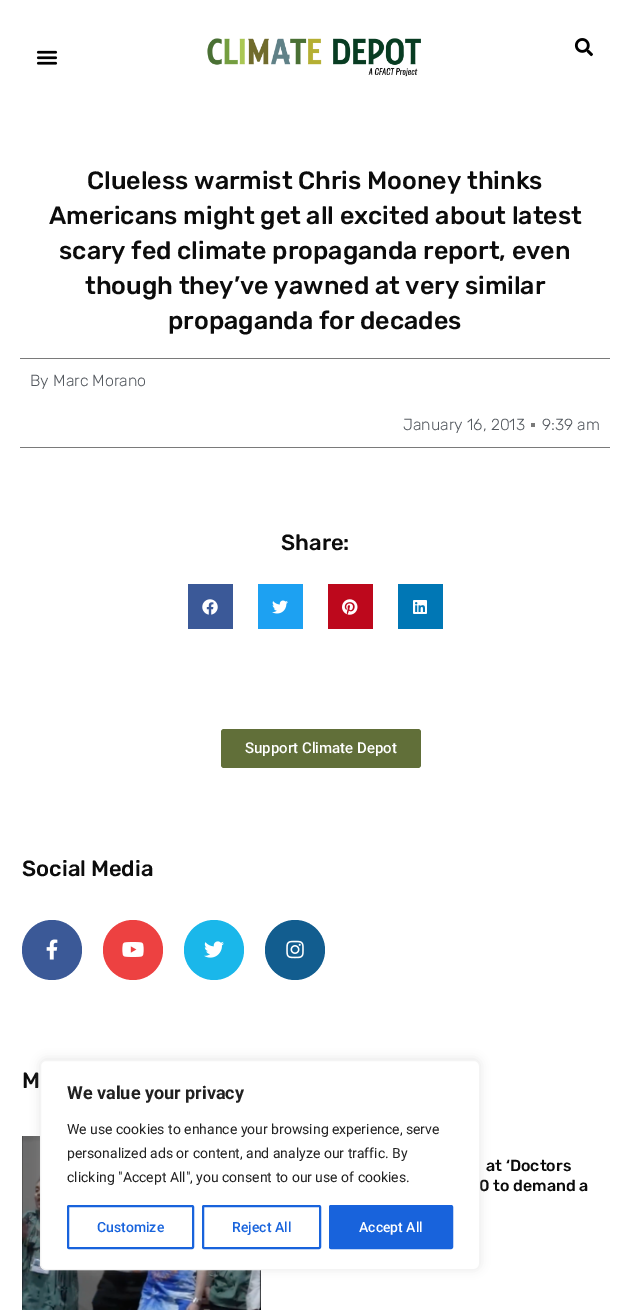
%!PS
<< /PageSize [630 1310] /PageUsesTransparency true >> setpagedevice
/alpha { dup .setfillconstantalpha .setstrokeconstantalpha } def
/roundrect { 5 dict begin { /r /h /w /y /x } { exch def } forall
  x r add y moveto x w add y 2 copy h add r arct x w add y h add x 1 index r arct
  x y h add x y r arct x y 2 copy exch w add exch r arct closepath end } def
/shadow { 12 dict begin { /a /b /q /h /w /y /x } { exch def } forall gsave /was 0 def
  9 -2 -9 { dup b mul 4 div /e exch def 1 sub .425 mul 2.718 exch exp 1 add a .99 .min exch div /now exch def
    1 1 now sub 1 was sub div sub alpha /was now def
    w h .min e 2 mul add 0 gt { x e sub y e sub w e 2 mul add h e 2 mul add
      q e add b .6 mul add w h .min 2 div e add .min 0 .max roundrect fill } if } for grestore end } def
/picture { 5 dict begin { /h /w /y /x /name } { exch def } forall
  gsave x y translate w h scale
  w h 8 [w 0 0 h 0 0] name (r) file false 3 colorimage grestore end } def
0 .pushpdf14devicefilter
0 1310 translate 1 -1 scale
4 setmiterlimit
1 setgray
0 0 630 1310 rectfill
(img1.rgb) 36 50 22 15 picture
(img2.rgb) 207 38 214 39 picture
(img3.rgb) 574 38 19 19 picture
/Rubik-Medium [25 0 0 -25 0 0] selectfont
0.047 setgray
87 189 moveto (Clueless warmist Chris Mooney thinks) show
49 224 moveto (Americans might get all excited about latest) show
59 259 moveto (scary fed climate propaganda report, even) show
85 294 moveto (though they’ve yawned at very similar) show
168 329 moveto (propaganda for decades) show
0.478 setgray
20 358 590 1 rectfill
20 447 590 1 rectfill
/Rubik-Light [16 0 0 -16 0 0] selectfont
0.329 0.349 0.373 setrgbcolor
30 386 moveto (By Marc Morano) show
403 430 moveto (January 16, 2013) show
0.478 setgray
531 423 4 4 rectfill
0.329 0.349 0.373 setrgbcolor
542 430 moveto (9:39 am) show
/Rubik-Medium [22 0 0 -22 0 0] selectfont
0.047 setgray
281 550 moveto (Share:) show
0.231 0.349 0.596 setrgbcolor
188 584 45 45 rectfill
(img4.rgb) 202 599 16 16 picture
0.114 0.631 0.949 setrgbcolor
258 584 45 45 rectfill
(img5.rgb) 272 600 16 14 picture
0.741 0.031 0.11 setrgbcolor
328 584 45 45 rectfill
(img6.rgb) 342 599 16 16 picture
0 0.467 0.71 setrgbcolor
398 584 45 45 rectfill
(img7.rgb) 413 600 14 14 picture
0.38 0.435 0.224 setrgbcolor
221 729 200 39 3 roundrect fill
/Roboto-Medium [15 0 0 -15 0 0] selectfont
1 setgray
245 753 moveto (Support Climate Depot) show
/Rubik-Medium [22 0 0 -22 0 0] selectfont
0.047 setgray
22 876 moveto (Social Media) show
0.231 0.349 0.592 setrgbcolor
newpath 52 950 30 0 360 arc closepath fill
(img8.rgb) 46 939 12 21 picture
0.929 0.255 0.255 setrgbcolor
newpath 133 950 30 0 360 arc closepath fill
(img9.rgb) 122 942 22 15 picture
0.102 0.718 0.918 setrgbcolor
newpath 214 950 30 0 360 arc closepath fill
(img10.rgb) 204 941 20 17 picture
0.071 0.365 0.561 setrgbcolor
newpath 295 950 30 0 360 arc closepath fill
(img11.rgb) 286 940 18 19 picture
0.047 setgray
22 1088 moveto (M) show
(img12.rgb) 22 1136 239 174 picture
/Rubik-Medium [16 0 0 -16 0 0] selectfont
486 1171 moveto (at ‘Doctors) show
479 1191 moveto (0 to demand a) show
0.675 0.671 0.671 setrgbcolor
40 1059 440 210 6 5 0.3 shadow
1 setgray
40.5 1060.5 439 209 5.5 roundrect gsave fill grestore
0.957 setgray
stroke
/Roboto-Bold [18 0 0 -18 0 0] selectfont
0.129 setgray
67 1099 moveto (We value your privacy) show
/Roboto-Regular [14 0 0 -14 0 0] selectfont
67 1134 moveto (We use cookies to enhance your browsing experience, serve) show
67 1158 moveto (personalized ads or content, and analyze our traffic. By) show
67 1182 moveto (clicking "Accept All", you consent to our use of cookies.) show
0.094 0.388 0.863 setrgbcolor
2 setlinewidth
68 1206 125 42 1 roundrect stroke
/Roboto-Medium [14 0 0 -14 0 0] selectfont
97 1232 moveto (Customize) show
203 1206 117 42 1 roundrect stroke
232 1232 moveto (Reject All) show
330 1206 122 42 1 roundrect gsave fill grestore
stroke
1 setgray
359 1232 moveto (Accept All) show
.poppdf14devicefilter showpage
